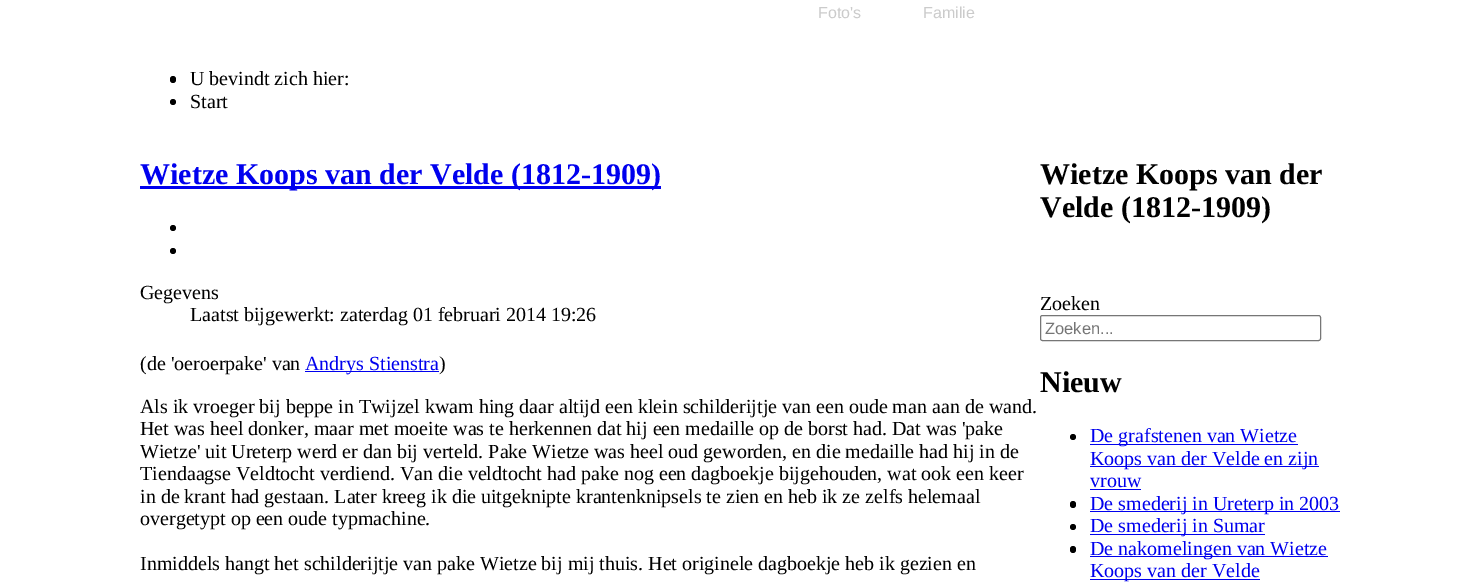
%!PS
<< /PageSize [1479 585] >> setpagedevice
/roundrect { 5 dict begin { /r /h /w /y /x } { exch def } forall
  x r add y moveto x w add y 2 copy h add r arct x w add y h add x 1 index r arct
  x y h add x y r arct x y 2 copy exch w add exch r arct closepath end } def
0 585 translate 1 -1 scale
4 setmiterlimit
1 setgray
0 0 1479 585 rectfill
/LiberationSans-Regular [16 0 0 -16 0 0] selectfont
0.796 setgray
818 18 moveto (Foto's) show
923 18 moveto (Familie) show
0 setgray
170 76 6 7 3 roundrect fill
/LiberationSerif-Regular [20 0 0 -20 0 0] selectfont
190 85 moveto (U bevindt zich hier:) show
newpath 173 102 3 0 360 arc closepath fill
190 108 moveto (Start) show
0 0 0.933 setrgbcolor
140 186 521 3 rectfill
/LiberationSerif-Bold [30 0 0 -30 0 0] selectfont
140 184 moveto (Wietze Koops van der Velde \(1812-1909\)) show
0 setgray
newpath 173 228 3 0 360 arc closepath fill
newpath 173 251 3 0 360 arc closepath fill
/LiberationSerif-Regular [20 0 0 -20 0 0] selectfont
140 299 moveto (Gegevens) show
190 321 moveto (Laatst bijgewerkt: zaterdag 01 februari 2014 19:26) show
140 370 moveto (\(de 'oeroerpake' van) show
0 0 0.933 setrgbcolor
305 371 134 1 rectfill
305 370 moveto (Andrys Stienstra) show
0 setgray
439 370 moveto (\)) show
140 413 moveto (Als ik vroeger bij beppe in Twijzel kwam hing daar altijd een klein schilderijtje van een oude man aan de wand.) show
140 435 moveto (Het was heel donker, maar met moeite was te herkennen dat hij een medaille op de borst had. Dat was 'pake) show
140 458 moveto (Wietze' uit Ureterp werd er dan bij verteld. Pake Wietze was heel oud geworden, en die medaille had hij in de) show
140 480 moveto (Tiendaagse Veldtocht verdiend. Van die veldtocht had pake nog een dagboekje bijgehouden, wat ook een keer) show
140 503 moveto (in de krant had gestaan. Later kreeg ik die uitgeknipte krantenknipsels te zien en heb ik ze zelfs helemaal) show
140 525 moveto (overgetypt op een oude typmachine.) show
140 570 moveto (Inmiddels hangt het schilderijtje van pake Wietze bij mij thuis. Het originele dagboekje heb ik gezien en) show
/LiberationSerif-Bold [30 0 0 -30 0 0] selectfont
1040 184 moveto (Wietze Koops van der) show
1040 217 moveto (Velde \(1812-1909\)) show
/LiberationSerif-Regular [20 0 0 -20 0 0] selectfont
1040 310 moveto (Zoeken) show
0.463 setgray
1040.5 315.5 280 25 2 roundrect stroke
/LiberationSans-Regular [16.5 0 0 -16.5 0 0] selectfont
0.459 setgray
1045 334 moveto (Zoeken...) show
/LiberationSerif-Bold [30 0 0 -30 0 0] selectfont
0 setgray
1040 392 moveto (Nieuw) show
newpath 1073 437 3 0 360 arc closepath fill
0 0 0.933 setrgbcolor
1090 444 208 1 rectfill
/LiberationSerif-Regular [20 0 0 -20 0 0] selectfont
1090 442 moveto (De grafstenen van Wietze) show
1090 466 229 1 rectfill
1090 465 moveto (Koops van der Velde en zijn) show
1090 487 moveto (vrouw) show
1090 489 51 1 rectfill
0 setgray
1070 501 6 7 3 roundrect fill
0 0 0.933 setrgbcolor
1090 511 250 1 rectfill
1090 510 moveto (De smederij in Ureterp in 2003) show
0 setgray
newpath 1073 527 3 0 360 arc closepath fill
0 0 0.933 setrgbcolor
1090 534 175 1 rectfill
1090 532 moveto (De smederij in Sumar) show
0 setgray
1070 546 6 7 3 roundrect fill
0 0 0.933 setrgbcolor
1090 556 238 1 rectfill
1090 555 moveto (De nakomelingen van Wietze) show
1090 579 170 1 rectfill
1090 577 moveto (Koops van der Velde) show
showpage
